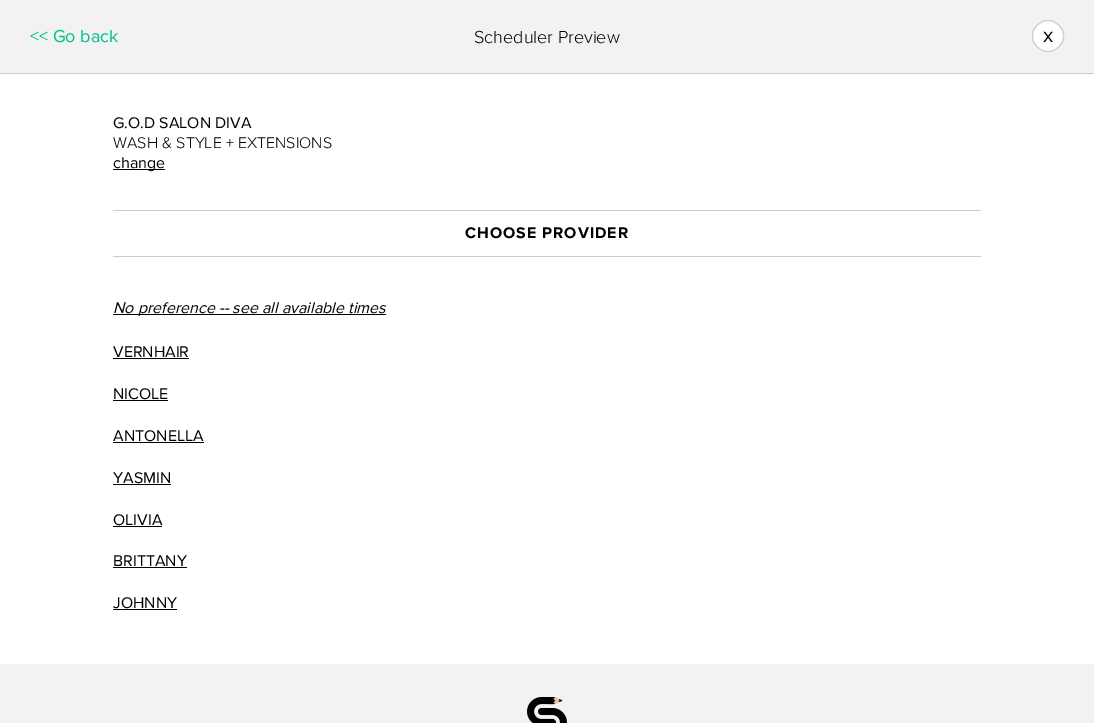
%!PS
<< /PageSize [1094 723] >> setpagedevice
/picture { 5 dict begin { /h /w /y /x /name } { exch def } forall
  gsave x y translate w h scale
  w h 8 [w 0 0 h 0 0] name (r) file false 3 colorimage grestore end } def
0 723 translate 1 -1 scale
4 setmiterlimit
1 setgray
0 0 1094 723 rectfill
0.949 setgray
0 0 1094 73 rectfill
0.8 setgray
0 73 1094 1 rectfill
/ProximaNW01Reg-Regular [18 0 0 -18 0 0] selectfont
0 0.757 0.549 setrgbcolor
30 42 moveto (<< Go back) show
/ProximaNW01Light-Light [18 0 0 -18 0 0] selectfont
0 setgray
474 43 moveto (Scheduler Preview) show
1 setgray
newpath 1048 36 15.5 0 360 arc closepath gsave fill grestore
0.8 setgray
stroke
/ProximaNW01Reg-Regular [21 0 0 -21 0 0] selectfont
0 setgray
1043 42 moveto (x) show
/ProximaNW01Reg-Regular [16 0 0 -16 0 0] selectfont
113 128 moveto (G.O.D SALON DIVA) show
/ProximaNW01Light-Light [16 0 0 -16 0 0] selectfont
113 148 moveto (WASH & STYLE + EXTENSIONS) show
113 169 52 1 rectfill
/ProximaNW01Reg-Regular [16 0 0 -16 0 0] selectfont
113 168 moveto (change) show
0.8 setgray
113 210 868 1 rectfill
113 256 868 1 rectfill
/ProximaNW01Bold-Bold [16 0 0 -16 0 0] selectfont
0 setgray
465 238 moveto 1 0 (CHOOSE PROVIDER) ashow
113 314 273 1 rectfill
/ProximaNW01Reg-Italic [16 0 0 -16 0 0] selectfont
113 313 moveto (No preference -- see all available times) show
/ProximaNW01Reg-Regular [16 0 0 -16 0 0] selectfont
113 357 moveto (VERNHAIR) show
113 358 76 1 rectfill
113 399 moveto (NICOLE) show
113 400 55 1 rectfill
113 441 moveto (ANTONELLA) show
113 442 91 1 rectfill
113 483 moveto (YASMIN) show
113 484 58 1 rectfill
113 525 moveto (OLIVIA) show
113 526 49 1 rectfill
113 566 moveto (BRITTANY) show
113 567 74 1 rectfill
113 608 moveto (JOHNNY) show
113 609 64 1 rectfill
0.949 setgray
0 664 1094 59 rectfill
(img1.rgb) 527 697 40 26 picture
showpage
